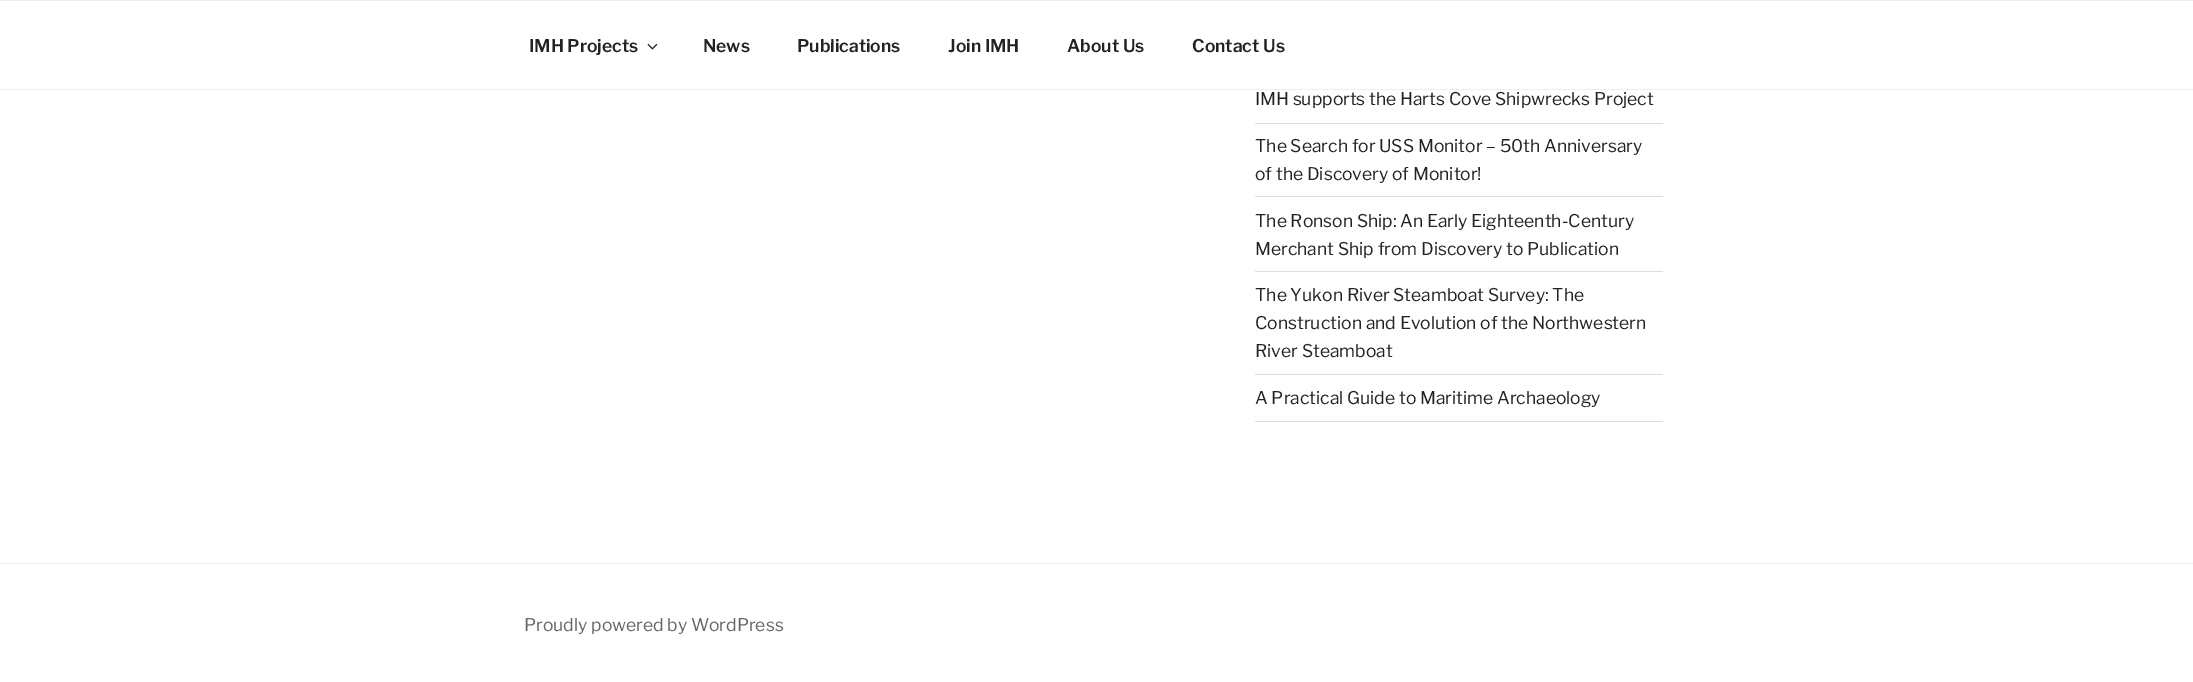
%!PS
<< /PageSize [2193 682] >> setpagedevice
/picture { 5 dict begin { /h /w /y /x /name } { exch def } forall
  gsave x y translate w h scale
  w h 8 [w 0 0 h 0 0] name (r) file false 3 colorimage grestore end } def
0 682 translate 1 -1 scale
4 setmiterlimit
1 setgray
0 0 2193 682 rectfill
0.933 setgray
0 0 2193 1 rectfill
0 89 2193 1 rectfill
/LibreFranklin-SemiBold [17.5 0 0 -17.5 0 0] selectfont
0.133 setgray
529 52 moveto (IMH Projects) show
(img1.rgb) 647 43 11 7 picture
703 52 moveto (News) show
797 52 moveto (Publications) show
948 52 moveto (Join IMH) show
1067 52 moveto (About Us) show
1192 52 moveto (Contact Us) show
0.867 setgray
1255 123 408 1 rectfill
/LibreFranklin-Regular [17.5 0 0 -17.5 0 0] selectfont
0.133 setgray
1255 105 moveto (IMH supports the Harts Cove Shipwrecks Project) show
0.867 setgray
1255 196 408 1 rectfill
0.133 setgray
1255 152 moveto (The Search for USS Monitor – 50th Anniversary) show
1255 180 moveto (of the Discovery of Monitor!) show
0.867 setgray
1255 271 408 1 rectfill
0.133 setgray
1255 227 moveto (The Ronson Ship: An Early Eighteenth-Century) show
1255 255 moveto (Merchant Ship from Discovery to Publication) show
0.867 setgray
1255 374 408 1 rectfill
0.133 setgray
1255 301 moveto (The Yukon River Steamboat Survey: The) show
1255 329 moveto (Construction and Evolution of the Northwestern) show
1255 357 moveto (River Steamboat) show
0.867 setgray
1255 421 408 1 rectfill
0.133 setgray
1255 404 moveto (A Practical Guide to Maritime Archaeology) show
0.933 setgray
0 563 2193 1 rectfill
0.4 setgray
524 631 moveto (Proudly powered by WordPress) show
showpage
